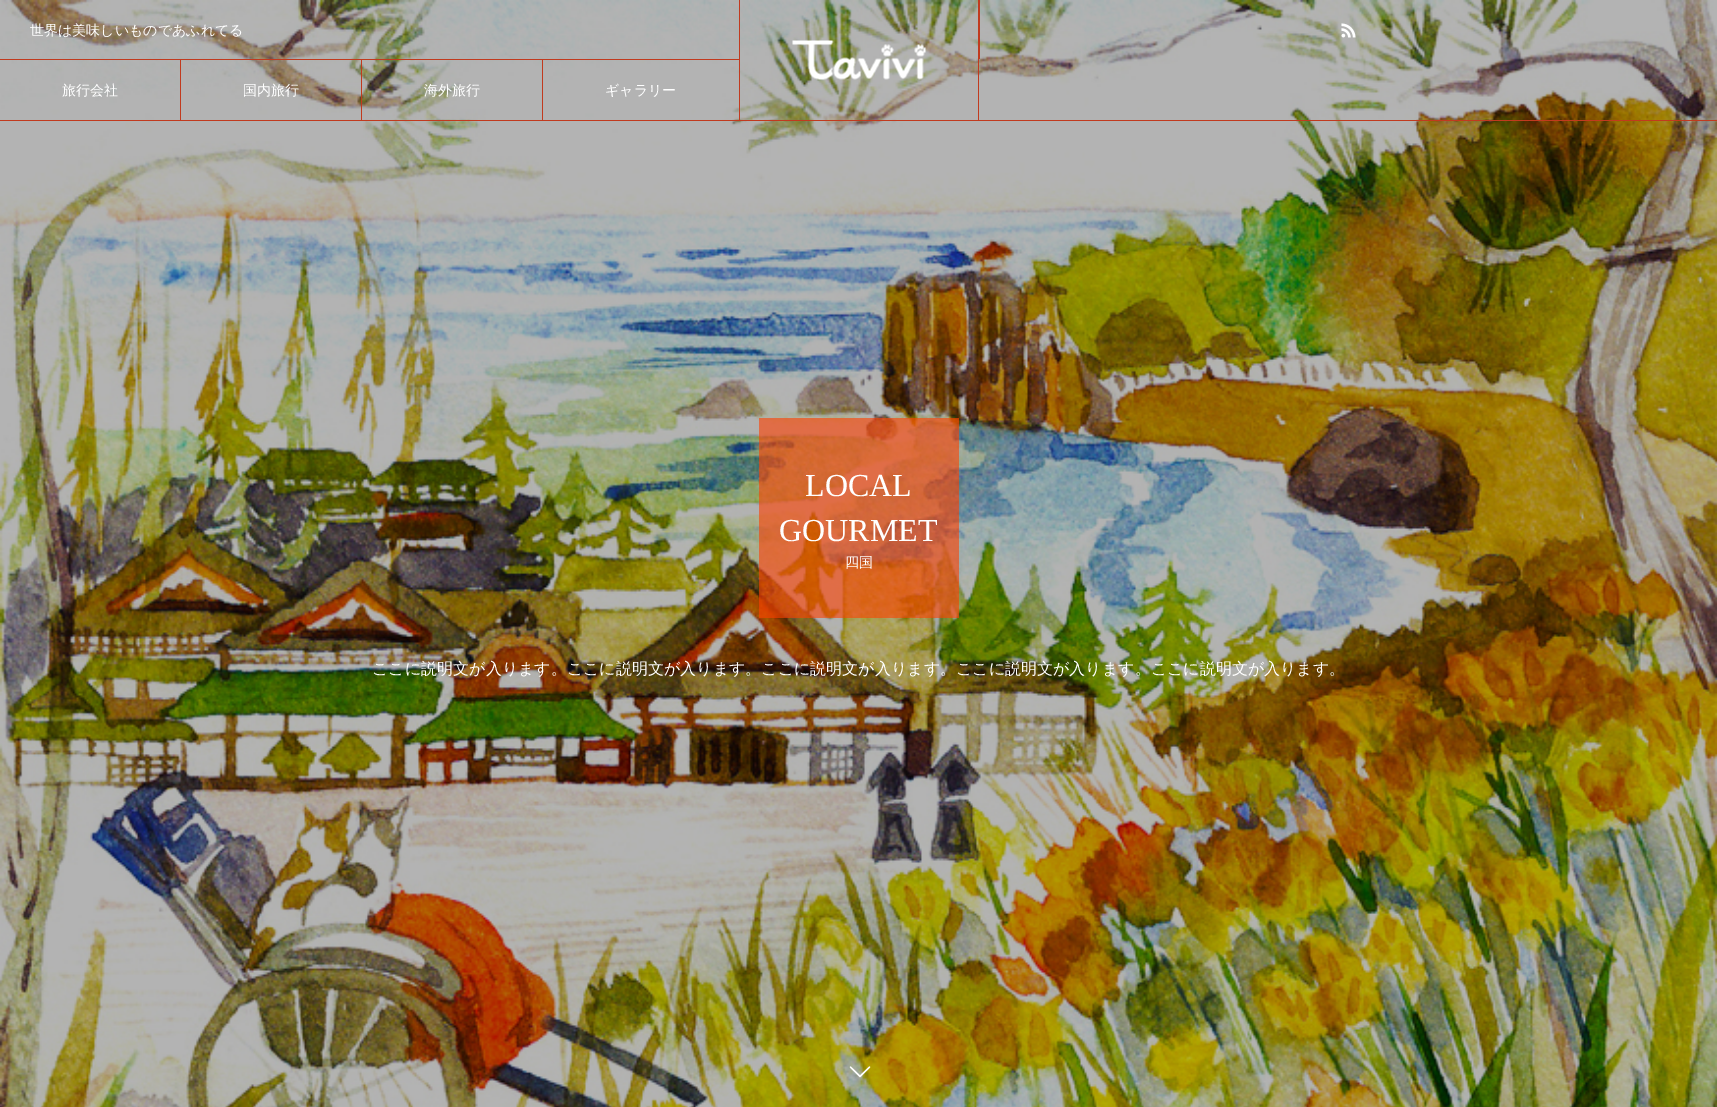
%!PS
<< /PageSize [1717 1107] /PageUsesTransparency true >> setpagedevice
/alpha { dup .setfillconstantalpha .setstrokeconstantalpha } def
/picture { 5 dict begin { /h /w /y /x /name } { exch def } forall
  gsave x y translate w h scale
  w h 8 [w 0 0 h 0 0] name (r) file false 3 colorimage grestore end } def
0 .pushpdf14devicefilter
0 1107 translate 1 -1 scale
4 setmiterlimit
1 setgray
0 0 1717 1107 rectfill
(img3.rgb) 0 0 1717 1107 picture
0.757 0.227 0.118 setrgbcolor
0 120 1717 1 rectfill
/WenQuanYiZenHei-Medium [14 0 0 -14 0 0] selectfont
1 setgray
30 35 moveto (世界は美味しいものであふれてる) show
0.757 0.227 0.118 setrgbcolor
978 0 1 120 rectfill
739 0 1 120 rectfill
(img1.rgb) 792 40 134 40 picture
979 0 1 59 rectfill
(img2.rgb) 1341 23 15 15 picture
0 59 739 1 rectfill
1 setgray
62 95 moveto (旅行会社) show
0.757 0.227 0.118 setrgbcolor
180 59 1 61 rectfill
1 setgray
243 95 moveto (国内旅行) show
0.757 0.227 0.118 setrgbcolor
361 59 1 61 rectfill
1 setgray
424 95 moveto (海外旅行) show
0.757 0.227 0.118 setrgbcolor
542 59 1 61 rectfill
1 setgray
605 95 moveto (ギャラリー) show
0.6 alpha
1 0.247 0 setrgbcolor
759 418 200 200 rectfill
/LiberationSerif-Regular [32 0 0 -32 0 0] selectfont
1 alpha
1 setgray
805 496 moveto (LOCAL) show
779 541 moveto (GOURMET) show
/WenQuanYiZenHei-Medium [14 0 0 -14 0 0] selectfont
845 567 moveto (四国) show
/WenQuanYiZenHei-Medium [16 0 0 -16 0 0] selectfont
372 674 moveto (ここに説明文が入ります。ここに説明文が入ります。ここに説明文が入ります。ここに説明文が入ります。ここに説明文が入ります。) show
(img4.rgb) 849 1066 22 12 picture
.poppdf14devicefilter showpage
